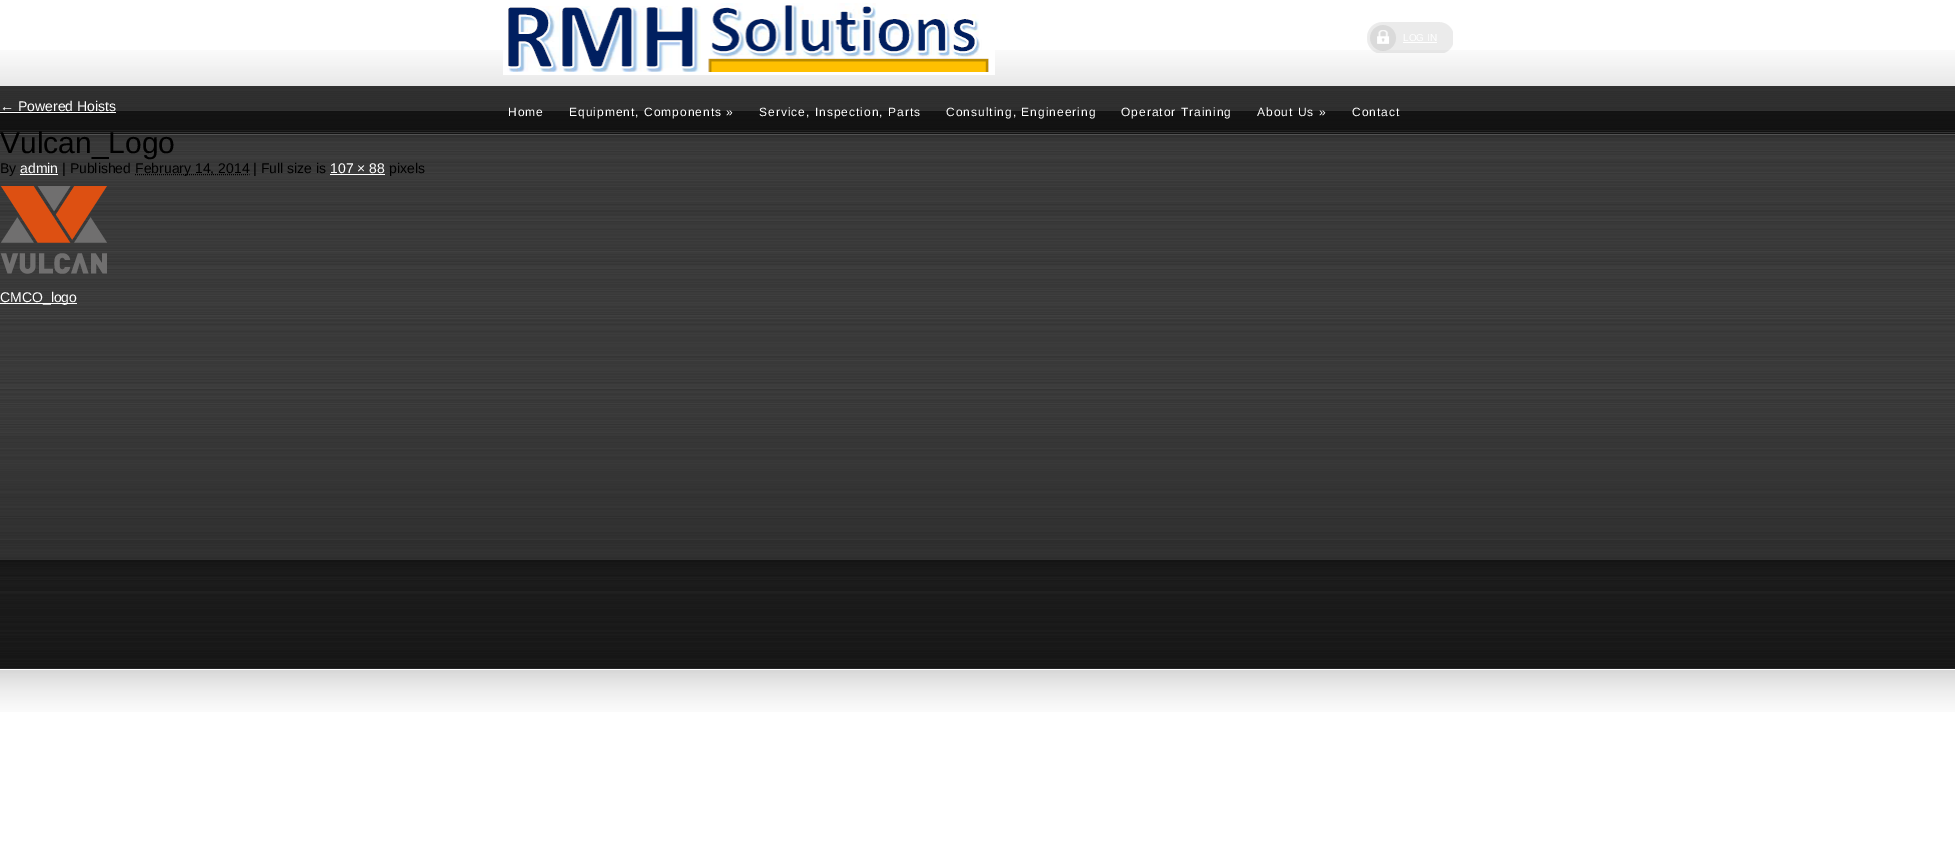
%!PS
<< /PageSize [1955 860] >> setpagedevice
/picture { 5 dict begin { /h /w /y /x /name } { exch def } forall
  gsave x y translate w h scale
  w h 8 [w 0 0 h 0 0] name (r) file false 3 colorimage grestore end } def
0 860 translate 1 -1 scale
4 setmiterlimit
1 setgray
0 0 1955 860 rectfill
(img1.rgb) 0 50 1955 662 picture
/LiberationSans-Regular [14 0 0 -14 0 0] selectfont
0 111 moveto (← Powered Hoists) show
0 112 116 1 rectfill
(img2.rgb) 503 3 492 72 picture
(img3.rgb) 1367 22 86 31 picture
/LiberationSans-Regular [10 0 0 -10 0 0] selectfont
1403 41 moveto (LOG IN) show
1403 42 34 1 rectfill
/LiberationSans-Regular [12 0 0 -12 0 0] selectfont
508 116 moveto 1 0 (Home) ashow
569 116 moveto 1 0 (Equipment, Components ») ashow
759 116 moveto 1 0 (Service, Inspection, Parts) ashow
946 116 moveto 1 0 (Consulting, Engineering) ashow
1121 116 moveto 1 0 (Operator Training) ashow
1257 116 moveto 1 0 (About Us ») ashow
1352 116 moveto 1 0 (Contact) ashow
/LiberationSans-Regular [30 0 0 -30 0 0] selectfont
0 setgray
0 153 moveto (Vulcan_Logo) show
/LiberationSans-Regular [14 0 0 -14 0 0] selectfont
0 173 moveto (By) show
1 setgray
20 173 moveto (admin) show
20 174 38 1 rectfill
0 setgray
62 173 moveto (| Published) show
[1 1] 0 setdash
newpath 135 174.5 moveto 249.5 174.5 lineto stroke
135 173 moveto (February 14, 2014 | Full size is) show
1 setgray
330 173 moveto (107 × 88) show
330 174 55 1 rectfill
0 setgray
389 173 moveto (pixels) show
(img4.rgb) 0 186 107 88 picture
1 setgray
0 303 77 1 rectfill
0 302 moveto (CMCO_logo) show
showpage
